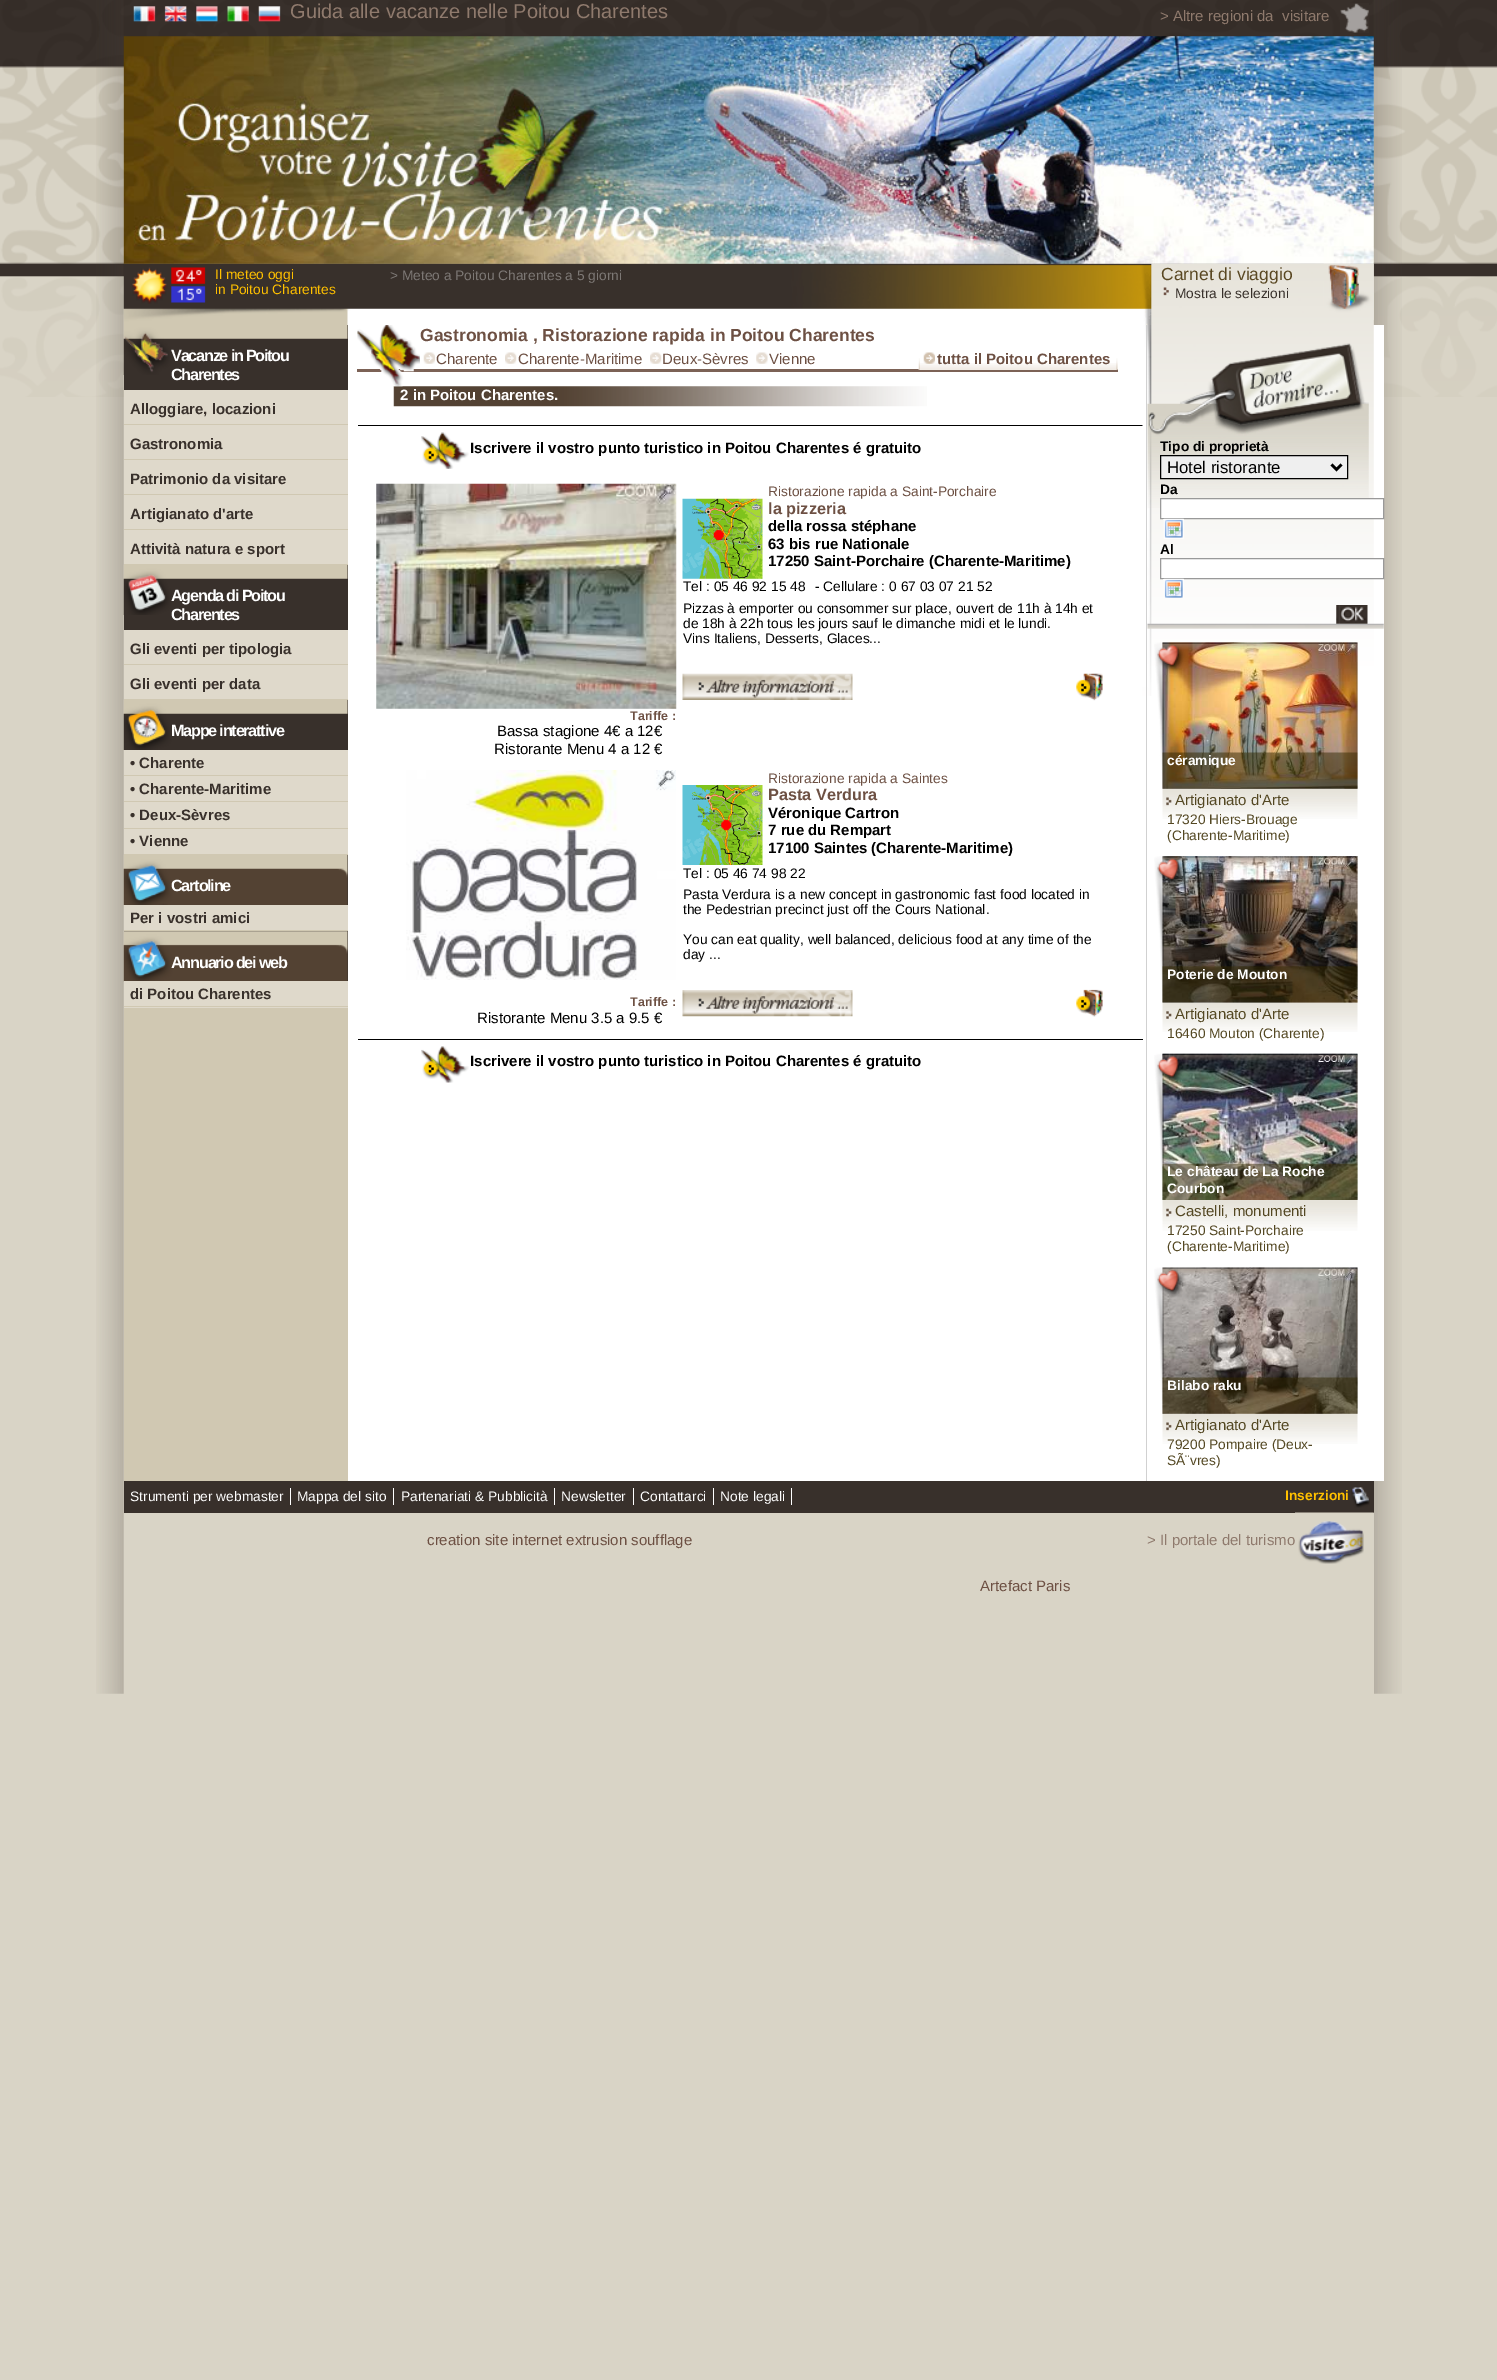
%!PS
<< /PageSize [1497 2380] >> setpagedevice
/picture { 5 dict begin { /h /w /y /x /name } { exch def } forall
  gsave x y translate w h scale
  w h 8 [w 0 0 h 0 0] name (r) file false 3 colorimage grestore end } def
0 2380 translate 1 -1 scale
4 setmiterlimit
0.851 0.831 0.776 setrgbcolor
0 0 1497 2380 rectfill
(img1.rgb) 0 0 1497 397 picture
(img2.rgb) 96 0 1306 1694 picture
(img3.rgb) 133 6 23 16 picture
(img4.rgb) 164 6 23 16 picture
(img5.rgb) 196 6 22 16 picture
(img6.rgb) 227 6 22 16 picture
(img7.rgb) 258 6 23 16 picture
/LiberationSans-Regular [20 0 0 -20 0 0] selectfont
0.561 0.478 0.427 setrgbcolor
290 18 moveto (Guida alle vacanze nelle Poitou Charentes) show
/LiberationSans-Regular [15 0 0 -15 0 0] selectfont
1160 21 moveto (> Altre regioni da  visitare) show
(img8.rgb) 1340 3 29 30 picture
(img10.rgb) 123 263 1251 62 picture
(img12.rgb) 1323 263 51 57 picture
(img9.rgb) 123 36 1251 228 picture
(img11.rgb) 132 267 74 37 picture
/LiberationSans-Regular [13.75 0 0 -13.75 0 0] selectfont
1 0.753 0 setrgbcolor
215 279 moveto (Il meteo oggi) show
215 294 moveto (in Poitou Charentes) show
0.49 0.471 0.459 setrgbcolor
390 280 moveto (> Meteo a Poitou Charentes a 5 giorni) show
/LiberationSans-Regular [17.5 0 0 -17.5 0 0] selectfont
0.353 0.282 0.137 setrgbcolor
1161 280 moveto (Carnet di viaggio) show
(img13.rgb) 1163 287 6 9 picture
/LiberationSans-Regular [13.75 0 0 -13.75 0 0] selectfont
0.22 0.188 0.169 setrgbcolor
1175 298 moveto (Mostra le selezioni) show
1 setgray
348 325 1036 1156 rectfill
0.816 0.784 0.698 setrgbcolor
124 1008 224 473 rectfill
0.22 0.188 0.169 setrgbcolor
124 325 224 65 rectfill
(img14.rgb) 123 325 225 50 picture
/LiberationSans-Bold [16.25 0 0 -16.25 0 0] selectfont
1 setgray
171 361 moveto -1.25 0 (Vacanze in Poitou) ashow
171 380 moveto -1.25 0 (Charentes) ashow
0.875 0.851 0.796 setrgbcolor
124 390 224 34 rectfill
0.816 0.784 0.698 setrgbcolor
124 424 224 1 rectfill
/LiberationSans-Bold [15 0 0 -15 0 0] selectfont
0.22 0.188 0.169 setrgbcolor
130 414 moveto (Alloggiare, locazioni) show
0.875 0.851 0.796 setrgbcolor
124 425 224 34 rectfill
0.816 0.784 0.698 setrgbcolor
124 459 224 1 rectfill
0.22 0.188 0.169 setrgbcolor
130 449 moveto (Gastronomia) show
0.875 0.851 0.796 setrgbcolor
124 460 224 34 rectfill
0.816 0.784 0.698 setrgbcolor
124 494 224 1 rectfill
0.22 0.188 0.169 setrgbcolor
130 484 moveto (Patrimonio da visitare) show
0.875 0.851 0.796 setrgbcolor
124 495 224 34 rectfill
0.816 0.784 0.698 setrgbcolor
124 529 224 1 rectfill
0.22 0.188 0.169 setrgbcolor
130 519 moveto (Artigianato d'arte) show
0.875 0.851 0.796 setrgbcolor
124 530 224 34 rectfill
0.816 0.784 0.698 setrgbcolor
124 564 224 1 rectfill
0.22 0.188 0.169 setrgbcolor
130 554 moveto (Attività natura e sport) show
124 565 224 65 rectfill
(img15.rgb) 123 565 225 50 picture
/LiberationSans-Bold [16.25 0 0 -16.25 0 0] selectfont
1 setgray
171 601 moveto -1.25 0 (Agenda di Poitou) ashow
171 620 moveto -1.25 0 (Charentes) ashow
0.875 0.851 0.796 setrgbcolor
124 630 224 34 rectfill
0.816 0.784 0.698 setrgbcolor
124 664 224 1 rectfill
/LiberationSans-Bold [15 0 0 -15 0 0] selectfont
0.22 0.188 0.169 setrgbcolor
130 654 moveto (Gli eventi per tipologia) show
0.875 0.851 0.796 setrgbcolor
124 665 224 34 rectfill
0.816 0.784 0.698 setrgbcolor
124 699 224 1 rectfill
0.22 0.188 0.169 setrgbcolor
130 689 moveto (Gli eventi per data) show
347 700 1 50 rectfill
(img16.rgb) 123 700 225 50 picture
/LiberationSans-Bold [16.25 0 0 -16.25 0 0] selectfont
1 setgray
171 736 moveto -1.25 0 (Mappe interattive) ashow
0.875 0.851 0.796 setrgbcolor
124 750 224 25 rectfill
0.816 0.784 0.698 setrgbcolor
124 775 224 1 rectfill
/LiberationSans-Bold [15 0 0 -15 0 0] selectfont
0.22 0.188 0.169 setrgbcolor
130 768 moveto (• Charente) show
0.875 0.851 0.796 setrgbcolor
124 776 224 52 rectfill
0.816 0.784 0.698 setrgbcolor
124 801 224 1 rectfill
0.22 0.188 0.169 setrgbcolor
130 794 moveto (• Charente-Maritime) show
0.816 0.784 0.698 setrgbcolor
124 828 224 1 rectfill
0.22 0.188 0.169 setrgbcolor
130 820 moveto (• Deux-Sèvres) show
0.875 0.851 0.796 setrgbcolor
124 829 224 25 rectfill
0.816 0.784 0.698 setrgbcolor
124 854 224 1 rectfill
0.22 0.188 0.169 setrgbcolor
130 846 moveto (• Vienne) show
347 855 1 50 rectfill
(img17.rgb) 123 855 225 50 picture
/LiberationSans-Bold [16.25 0 0 -16.25 0 0] selectfont
1 setgray
171 891 moveto -1.25 0 (Cartoline) ashow
0.875 0.851 0.796 setrgbcolor
124 905 224 25 rectfill
0.816 0.784 0.698 setrgbcolor
124 930 224 1 rectfill
/LiberationSans-Bold [15 0 0 -15 0 0] selectfont
0.22 0.188 0.169 setrgbcolor
130 923 moveto (Per i vostri amici) show
124 931 224 50 rectfill
(img18.rgb) 123 931 225 51 picture
/LiberationSans-Bold [16.25 0 0 -16.25 0 0] selectfont
1 setgray
171 968 moveto -1.25 0 (Annuario dei web) ashow
0.875 0.851 0.796 setrgbcolor
124 981 224 27 rectfill
0.816 0.784 0.698 setrgbcolor
124 1006 224 1 rectfill
/LiberationSans-Bold [15 0 0 -15 0 0] selectfont
0.22 0.188 0.169 setrgbcolor
130 999 moveto (di Poitou Charentes) show
0.486 0.384 0.337 setrgbcolor
357 369 761 3 rectfill
(img28.rgb) 393 386 534 21 picture
(img19.rgb) 357 325 63 62 picture
/LiberationSans-Bold [17.5 0 0 -17.5 0 0] selectfont
0.427 0.314 0.263 setrgbcolor
420 341 moveto (Gastronomia , Ristorazione rapida in Poitou Charentes) show
(img20.rgb) 423 352 12 12 picture
/LiberationSans-Regular [15 0 0 -15 0 0] selectfont
436 364 moveto (Charente) show
(img21.rgb) 505 352 12 12 picture
518 364 moveto (Charente-Maritime) show
(img22.rgb) 650 352 12 12 picture
662 364 moveto (Deux-Sèvres) show
(img23.rgb) 756 352 12 12 picture
769 364 moveto (Vienne) show
(img24.rgb) 918 363 200 7 picture
(img25.rgb) 918 358 2 12 picture
(img26.rgb) 923 352 12 12 picture
/LiberationSans-Bold [15 0 0 -15 0 0] selectfont
937 364 moveto (tutta il Poitou Charentes) show
(img27.rgb) 1116 358 2 12 picture
1 setgray
400 400 moveto (2 in Poitou Charentes.) show
(img29.rgb) 421 432 48 37 picture
0 setgray
358 425 785 1 rectfill
470 453 moveto (Iscrivere il vostro punto turistico in Poitou Charentes é gratuito) show
/LiberationSans-Regular [13.75 0 0 -13.75 0 0] selectfont
0.427 0.314 0.263 setrgbcolor
768 496 moveto (Ristorazione rapida a Saint-Porchaire) show
(img30.rgb) 682 498 81 81 picture
(img31.rgb) 713 529 11 12 picture
/LiberationSans-Bold [16.25 0 0 -16.25 0 0] selectfont
768 514 moveto (la pizzeria) show
/LiberationSans-Bold [15 0 0 -15 0 0] selectfont
0 setgray
768 531 moveto (della rossa stéphane) show
768 549 moveto (63 bis rue Nationale) show
768 566 moveto (17250 Saint-Porchaire \(Charente-Maritime\)) show
/LiberationSans-Regular [13.75 0 0 -13.75 0 0] selectfont
683 591 moveto (Tel : 05 46 92 15 48) show
815 591 moveto (- Cellulare : 0 67 03 07 21 52) show
683 613 moveto (Pizzas à emporter ou consommer sur place, ouvert de 11h à 14h et) show
683 628 moveto (de 18h à 22h tous les jours sauf le dimanche midi et le lundi.) show
683 643 moveto (Vins Italiens, Desserts, Glaces...) show
(img32.rgb) 682 673 171 27 picture
(img33.rgb) 1076 673 27 28 picture
(img34.rgb) 376 483 301 226 picture
/LiberationSans-Bold [12.5 0 0 -12.5 0 0] selectfont
0.427 0.314 0.263 setrgbcolor
630 720 moveto (Tariffe :) show
/LiberationSans-Regular [15 0 0 -15 0 0] selectfont
0 setgray
497 736 moveto (Bassa stagione 4€ a 12€) show
494 754 moveto (Ristorante Menu 4 a 12 €) show
/LiberationSans-Regular [13.75 0 0 -13.75 0 0] selectfont
0.427 0.314 0.263 setrgbcolor
768 783 moveto (Ristorazione rapida a Saintes) show
(img35.rgb) 682 785 81 80 picture
(img36.rgb) 721 819 11 12 picture
/LiberationSans-Bold [16.25 0 0 -16.25 0 0] selectfont
768 800 moveto (Pasta Verdura) show
/LiberationSans-Bold [15 0 0 -15 0 0] selectfont
0 setgray
768 818 moveto (Véronique Cartron) show
768 835 moveto (7 rue du Rempart) show
768 853 moveto (17100 Saintes \(Charente-Maritime\)) show
/LiberationSans-Regular [13.75 0 0 -13.75 0 0] selectfont
683 878 moveto (Tel : 05 46 74 98 22) show
683 899 moveto (Pasta Verdura is a new concept in gastronomic fast food located in) show
683 914 moveto (the Pedestrian precinct just off the Cours National.) show
683 944 moveto (You can eat quality, well balanced, delicious food at any time of the) show
683 959 moveto (day ...) show
(img37.rgb) 682 990 171 27 picture
(img38.rgb) 1076 989 27 28 picture
(img39.rgb) 406 770 270 210 picture
/LiberationSans-Bold [12.5 0 0 -12.5 0 0] selectfont
0.427 0.314 0.263 setrgbcolor
630 1006 moveto (Tariffe :) show
/LiberationSans-Regular [15 0 0 -15 0 0] selectfont
0 setgray
477 1023 moveto (Ristorante Menu 3.5 a 9.5 €) show
(img40.rgb) 421 1046 48 37 picture
358 1039 785 1 rectfill
/LiberationSans-Bold [15 0 0 -15 0 0] selectfont
470 1066 moveto (Iscrivere il vostro punto turistico in Poitou Charentes é gratuito) show
(img41.rgb) 1142 325 232 371 picture
0.82 setgray
1146 325 1 1156 rectfill
(img42.rgb) 1147 343 222 165 picture
/LiberationSans-Bold [13.75 0 0 -13.75 0 0] selectfont
0 setgray
1160 451 moveto (Tipo di proprietà) show
0.937 setgray
newpath 1160.5 455.5 moveto 1347.5 455.5 lineto 1347.5 478.5 lineto 1160.5 478.5 lineto closepath gsave fill grestore
0 setgray
stroke
2.5 setlinewidth
newpath 1331.5 464.5 moveto 1336.5 469.5 lineto 1341.5 464.5 lineto stroke
/LiberationSans-Regular [16.75 0 0 -16.75 0 0] selectfont
1167 473 moveto (Hotel ristorante) show
/LiberationSans-Bold [13.75 0 0 -13.75 0 0] selectfont
1160 494 moveto (Da) show
1 setgray
1161 499 213 19 rectfill
0.6 setgray
1 setlinewidth
1160.5 498.5 223 20 rectstroke
(img43.rgb) 1163 518 21 21 picture
0 setgray
1160 554 moveto (Al) show
1 setgray
1161 559 213 19 rectfill
0.6 setgray
1160.5 558.5 223 20 rectstroke
(img44.rgb) 1163 578 21 20 picture
(img46.rgb) 1147 623 237 6 picture
(img45.rgb) 1336 605 32 19 picture
(img49.rgb) 1162 788 196 31 picture
(img48.rgb) 1162 642 196 147 picture
(img47.rgb) 1154 642 204 147 picture
1 setgray
1167 765 moveto (céramique) show
/LiberationSans-Regular [15 0 0 -15 0 0] selectfont
0.329 0.282 0.137 setrgbcolor
1175 805 moveto (Artigianato d'Arte) show
/LiberationSans-Regular [13.75 0 0 -13.75 0 0] selectfont
1167 824 moveto (17320 Hiers-Brouage) show
1167 840 moveto (\(Charente-Maritime\)) show
(img52.rgb) 1162 1002 196 30 picture
(img51.rgb) 1162 856 196 147 picture
(img50.rgb) 1154 856 204 147 picture
/LiberationSans-Bold [13.75 0 0 -13.75 0 0] selectfont
1 setgray
1167 979 moveto (Poterie de Mouton) show
/LiberationSans-Regular [15 0 0 -15 0 0] selectfont
0.329 0.282 0.137 setrgbcolor
1175 1019 moveto (Artigianato d'Arte) show
/LiberationSans-Regular [13.75 0 0 -13.75 0 0] selectfont
1167 1038 moveto (16460 Mouton \(Charente\)) show
(img54.rgb) 1162 1053 196 147 picture
(img53.rgb) 1154 1053 204 147 picture
/LiberationSans-Bold [13.75 0 0 -13.75 0 0] selectfont
1 setgray
1167 1176 moveto (Le château de La Roche) show
1167 1193 moveto (Courbon) show
(img55.rgb) 1162 1200 196 31 picture
/LiberationSans-Regular [15 0 0 -15 0 0] selectfont
0.329 0.282 0.137 setrgbcolor
1175 1216 moveto (Castelli, monumenti) show
/LiberationSans-Regular [13.75 0 0 -13.75 0 0] selectfont
1167 1235 moveto (17250 Saint-Porchaire) show
1167 1251 moveto (\(Charente-Maritime\)) show
(img49.rgb) 1162 1413 196 31 picture
(img57.rgb) 1162 1267 196 147 picture
(img56.rgb) 1154 1267 204 147 picture
/LiberationSans-Bold [13.75 0 0 -13.75 0 0] selectfont
1 setgray
1167 1390 moveto (Bilabo raku) show
/LiberationSans-Regular [15 0 0 -15 0 0] selectfont
0.329 0.282 0.137 setrgbcolor
1175 1430 moveto (Artigianato d'Arte) show
/LiberationSans-Regular [13.75 0 0 -13.75 0 0] selectfont
1167 1449 moveto (79200 Pompaire \(Deux-) show
1167 1465 moveto (SÃ¨vres\)) show
0.851 0.831 0.776 setrgbcolor
1373 1513 1 181 rectfill
0.22 0.188 0.169 setrgbcolor
124 1481 1250 32 rectfill
1 setgray
290 1488 1 17 rectfill
130 1501 moveto (Strumenti per webmaster) show
393 1488 1 17 rectfill
297 1501 moveto (Mappa del sito) show
554 1488 1 17 rectfill
401 1501 moveto (Partenariati & Pubblicità) show
633 1488 1 17 rectfill
561 1501 moveto (Newsletter) show
713 1488 1 17 rectfill
640 1501 moveto (Contattarci) show
791 1488 1 17 rectfill
720 1501 moveto (Note legali) show
/LiberationSans-Bold [13.75 0 0 -13.75 0 0] selectfont
1 0.753 0 setrgbcolor
1285 1500 moveto (Inserzioni) show
(img58.rgb) 1351 1487 19 21 picture
/LiberationSans-Regular [15 0 0 -15 0 0] selectfont
0.427 0.314 0.263 setrgbcolor
427 1545 moveto (creation site internet extrusion soufflage) show
0.561 0.478 0.427 setrgbcolor
1147 1545 moveto (> Il portale del turismo) show
(img59.rgb) 1295 1512 79 52 picture
0.427 0.314 0.263 setrgbcolor
980 1591 moveto (Artefact Paris) show
showpage
